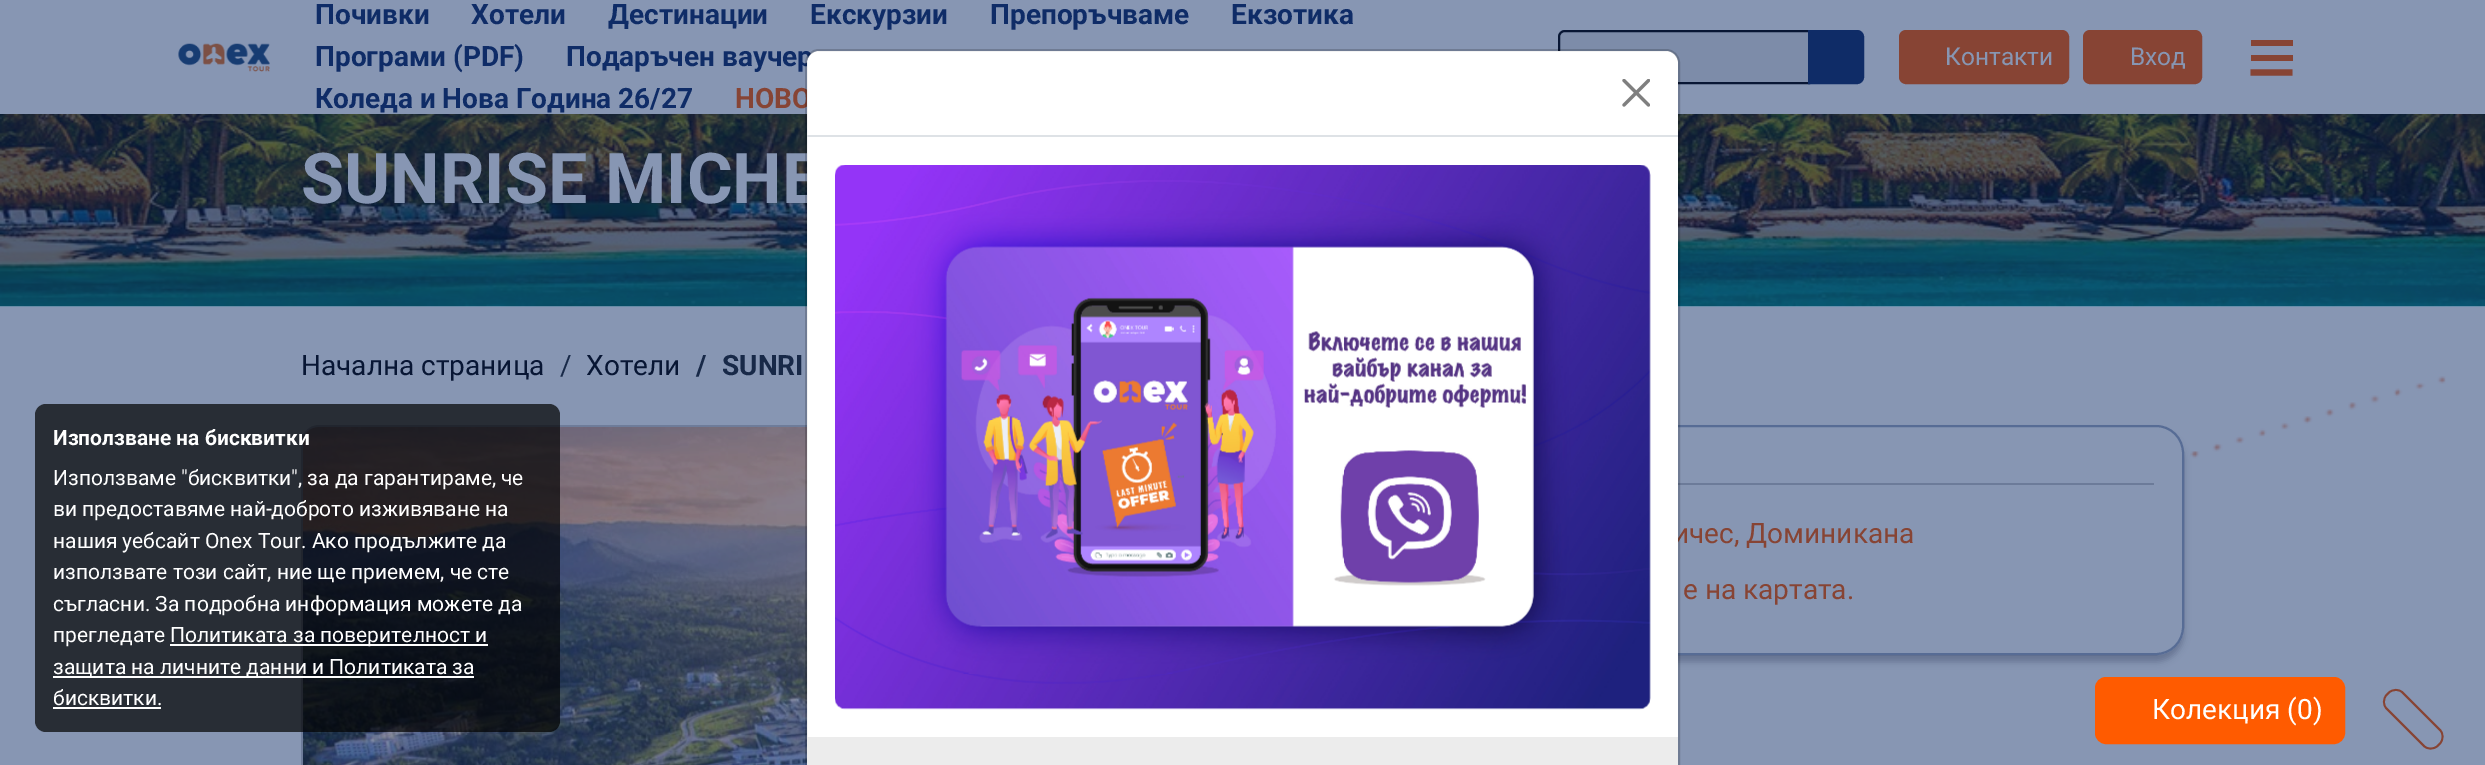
%!PS
<< /PageSize [2485 765] /PageUsesTransparency true >> setpagedevice
/alpha { dup .setfillconstantalpha .setstrokeconstantalpha } def
/roundrect { 5 dict begin { /r /h /w /y /x } { exch def } forall
  x r add y moveto x w add y 2 copy h add r arct x w add y h add x 1 index r arct
  x y h add x y r arct x y 2 copy exch w add exch r arct closepath end } def
/shadow { 12 dict begin { /a /b /q /h /w /y /x } { exch def } forall gsave /was 0 def
  9 -2 -9 { dup b mul 4 div /e exch def 1 sub .425 mul 2.718 exch exp 1 add a .99 .min exch div /now exch def
    1 1 now sub 1 was sub div sub alpha /was now def
    w h .min e 2 mul add 0 gt { x e sub y e sub w e 2 mul add h e 2 mul add
      q e add b .6 mul add w h .min 2 div e add .min 0 .max roundrect fill } if } for grestore end } def
/picture { 5 dict begin { /h /w /y /x /name } { exch def } forall
  gsave x y translate w h scale
  w h 8 [w 0 0 h 0 0] name (r) file false 3 colorimage grestore end } def
0 .pushpdf14devicefilter
0 765 translate 1 -1 scale
4 setmiterlimit
0.529 0.588 0.702 setrgbcolor
0 0 2485 765 rectfill
(img1.rgb) 178 43 92 29 picture
/Roboto-Bold [28 0 0 -28 0 0] selectfont
0.059 0.173 0.404 setrgbcolor
315 24 moveto (Почивки) show
471 24 moveto (Хотели) show
608 24 moveto (Дестинации) show
810 24 moveto (Екскурзии) show
990 24 moveto (Препоръчваме) show
1231 24 moveto (Екзотика) show
315 66 moveto (Програми \(PDF\)) show
566 66 moveto (Подаръчен ваучер) show
315 108 moveto (Коледа и Нова Година 26/27) show
0.529 0.267 0.204 setrgbcolor
735 108 moveto (НОВО) show
0.49 0.549 0.663 setrgbcolor
newpath 1565 31 moveto 1809 31 lineto 1809 83 lineto 1565 83 lineto 1561.5 83 1559 80.5 1559 77 curveto 1559 37 lineto 1559 33.5 1561.5 31 1565 31 curveto closepath gsave fill grestore
0.031 0.086 0.204 setrgbcolor
2 setlinewidth
stroke
0.059 0.173 0.404 setrgbcolor
newpath 1809 31 moveto 1857 31 lineto 1860.5 31 1863 33.5 1863 37 curveto 1863 77 lineto 1863 80.5 1860.5 83 1857 83 curveto 1809 83 lineto closepath gsave fill grestore
stroke
0.529 0.267 0.204 setrgbcolor
1900 31 168 52 6 roundrect gsave fill grestore
stroke
/Roboto-Regular [24.5 0 0 -24.5 0 0] selectfont
0.529 0.588 0.702 setrgbcolor
1945 65 moveto (Контакти) show
0.529 0.267 0.204 setrgbcolor
2084 31 117 52 6 roundrect gsave fill grestore
stroke
0.529 0.588 0.702 setrgbcolor
2130 65 moveto (Вход) show
0.529 0.267 0.204 setrgbcolor
2251 40 42 6 rectfill
2251 55 42 6 rectfill
6.3 setlinewidth
newpath 2250.5 72.5 moveto 2292.5 72.5 lineto stroke
(img2.rgb) 0 114 2485 193 picture
/Roboto-Bold [70 0 0 -70 0 0] selectfont
0.529 0.588 0.702 setrgbcolor
301 203 moveto (SUNRISE MICHE) show
0.431 0.486 0.604 setrgbcolor
2 setlinewidth
302 426 1239 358 17 roundrect stroke
(img5.rgb) 2190 376 256 83 picture
0.031 0.086 0.204 setrgbcolor
1584 432 600 230 28 3.5 0.25 shadow
0.529 0.588 0.702 setrgbcolor
1584 425 600 230 28 roundrect fill
0.4 alpha
0.059 0.173 0.404 setrgbcolor
1585 426 598 228 27 roundrect stroke
/Roboto-Regular [28 0 0 -28 0 0] selectfont
1 alpha
0.529 0.267 0.204 setrgbcolor
1673 543 moveto (ичес, Доминикана) show
1 setgray
newpath 819 51 moveto 1666 51 lineto 1672.5 51 1678 56.5 1678 63 curveto 1678 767 lineto 807 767 lineto 807 63 lineto 807 56.5 812.5 51 819 51 curveto closepath fill
(img6.rgb) 303 427 504 338 picture
0.424 0.482 0.6 setrgbcolor
1678 483 476 2 rectfill
0.18 alpha
0 setgray
806 50 873 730 13 roundrect stroke
1 alpha
0.871 0.886 0.902 setrgbcolor
807 135 871 2 rectfill
(img3.rgb) 1622 79 28 28 picture
(img4.rgb) 835 165 816 545 picture
0.925 setgray
807 737 871 28 rectfill
0.7 alpha
0 setgray
35 404 525 328 11 roundrect fill
/Roboto-Bold [21 0 0 -21 0 0] selectfont
1 alpha
1 setgray
53 445 moveto (Използване на бисквитки) show
/Roboto-Regular [21 0 0 -21 0 0] selectfont
53 485 moveto (Използваме "бисквитки", за да гарантираме, че) show
53 516 moveto (ви предоставяме най-доброто изживяване на) show
53 548 moveto (нашия уебсайт Onex Tour. Ако продължите да) show
53 579 moveto (използвате този сайт, ние ще приемем, че сте) show
53 611 moveto (съгласни. За подробна информация можете да) show
53 642 moveto (прегледате) show
170 644 318 2 rectfill
170 642 moveto (Политиката за поверителност и) show
53 676 421 2 rectfill
53 674 moveto (защита на личните данни и Политиката за) show
53 705 moveto (бисквитки.) show
53 707 108 2 rectfill
/Roboto-Regular [28 0 0 -28 0 0] selectfont
0.031 0.086 0.204 setrgbcolor
301 375 moveto (Начална страница) show
0.094 0.161 0.282 setrgbcolor
560 375 moveto (/) show
0.031 0.086 0.204 setrgbcolor
586 375 moveto (Хотели) show
/Roboto-Bold [28 0 0 -28 0 0] selectfont
0.094 0.161 0.282 setrgbcolor
696 375 moveto (/) show
722 375 moveto (SUNRI) show
/Roboto-Regular [28 0 0 -28 0 0] selectfont
0.529 0.267 0.204 setrgbcolor
1683 599 moveto (е на картата.) show
1 0.357 0 setrgbcolor
2096 678 248 65 10 roundrect gsave fill grestore
stroke
1 setgray
2152 719 moveto (Колекция \(0\)) show
0.529 0.267 0.204 setrgbcolor
1.8 setlinewidth
newpath 2402.5 692.5 moveto 2440 730 lineto 2443.5 733.5 2443.5 739.5 2440 743.5 curveto 2437.5 746 lineto 2433.5 749.5 2427.5 749.5 2424 746 curveto 2386.5 708.5 lineto 2383 705 2383 699 2386.5 695 curveto 2389 692.5 lineto 2393 689 2399 689 2402.5 692.5 curveto closepath stroke
.poppdf14devicefilter showpage
